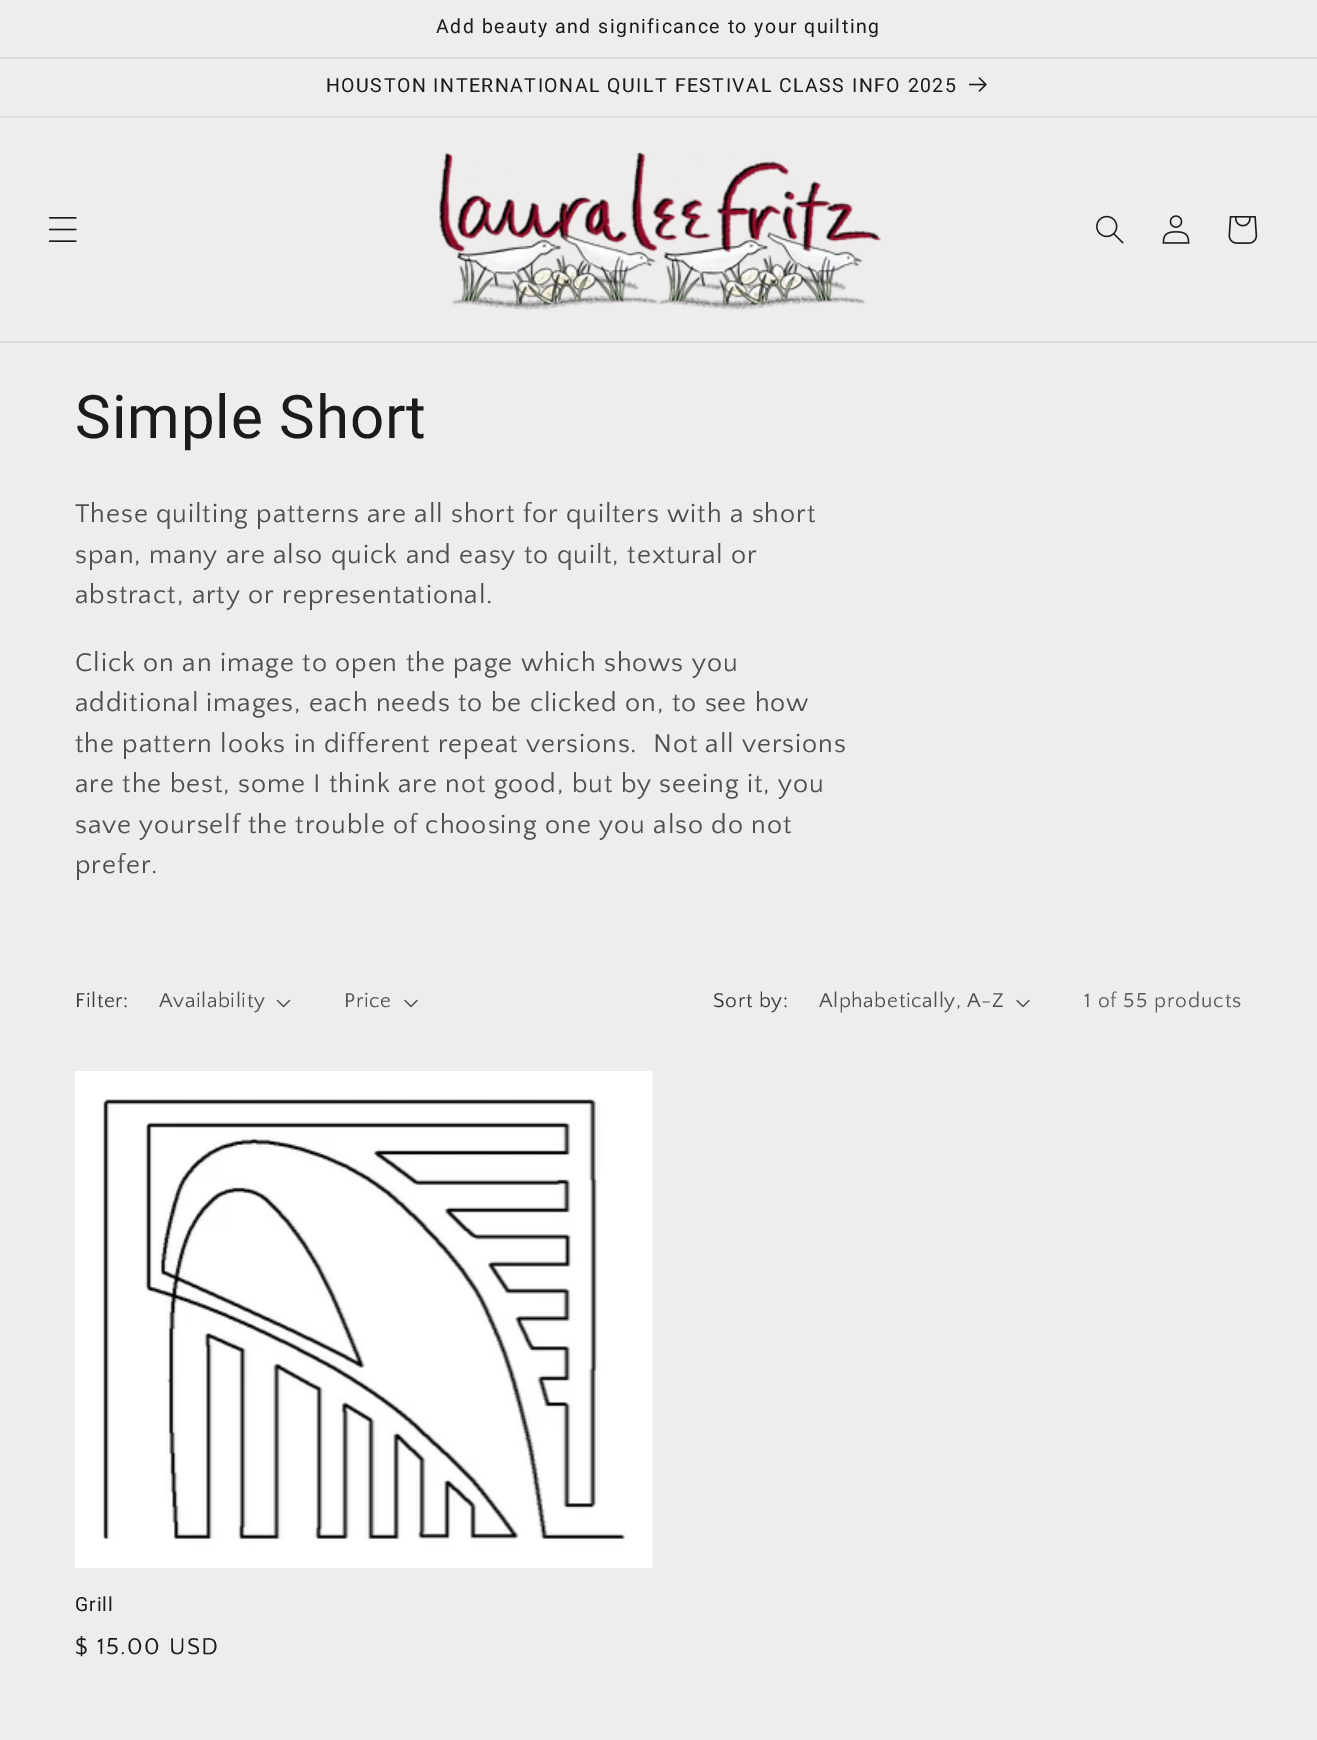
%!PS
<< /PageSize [1317 1740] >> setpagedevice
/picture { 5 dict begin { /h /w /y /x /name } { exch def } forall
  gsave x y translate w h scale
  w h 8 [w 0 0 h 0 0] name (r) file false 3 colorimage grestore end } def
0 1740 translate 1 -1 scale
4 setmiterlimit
0.937 0.925 0.925 setrgbcolor
0 0 1317 1740 rectfill
0.871 0.859 0.859 setrgbcolor
0 57 1317 2 rectfill
/Roboto-Regular [19.5 0 0 -19.5 0 0] selectfont
0.11 0.102 0.102 setrgbcolor
436 33 moveto 1.5 0 (Add beauty and significance to your quilting) ashow
0.871 0.859 0.859 setrgbcolor
0 116 1317 2 rectfill
0.11 0.102 0.102 setrgbcolor
326 92 moveto 1.5 0 (HOUSTON INTERNATIONAL QUILT FESTIVAL CLASS INFO 2025) ashow
(img1.rgb) 969 77 18 15 picture
0.871 0.859 0.859 setrgbcolor
0 341 1317 2 rectfill
(img2.rgb) 48 217 29 25 picture
(img3.rgb) 439 152 442 159 picture
(img4.rgb) 1096 215 28 29 picture
(img5.rgb) 1162 215 28 29 picture
(img6.rgb) 1228 216 30 28 picture
/Roboto-Regular [60 0 0 -60 0 0] selectfont
0.11 0.102 0.102 setrgbcolor
75 438 moveto 0.9 0 (Simple Short) ashow
/QuattrocentoSans-Regular [27 0 0 -27 0 0] selectfont
0.318 0.31 0.31 setrgbcolor
75 522 moveto 0.9 0 (These quilting patterns are all short for quilters with a short) ashow
75 563 moveto 0.9 0 (span, many are also quick and easy to quilt, textural or) ashow
75 603 moveto 0.9 0 (abstract, arty or representational.) ashow
75 671 moveto 0.9 0 (Click on an image to open the page which shows you) ashow
75 711 moveto 0.9 0 (additional images, each needs to be clicked on, to see how) ashow
75 752 moveto 0.9 0 (the pattern looks in different repeat versions.  Not all versions) ashow
75 792 moveto 0.9 0 (are the best, some I think are not good, but by seeing it, you) ashow
75 833 moveto 0.9 0 (save yourself the trouble of choosing one you also do not) ashow
75 873 moveto 0.9 0 (prefer.) ashow
/QuattrocentoSans-Regular [21 0 0 -21 0 0] selectfont
0.235 0.227 0.227 setrgbcolor
75 1007 moveto 0.6 0 (Filter:) ashow
0.318 0.31 0.31 setrgbcolor
159 1007 moveto 0.6 0 (Availability) ashow
(img7.rgb) 276 999 15 9 picture
344 1007 moveto 0.6 0 (Price) ashow
(img8.rgb) 404 999 14 9 picture
0.235 0.227 0.227 setrgbcolor
713 1007 moveto 0.6 0 (Sort by:) ashow
0.318 0.31 0.31 setrgbcolor
819 1007 moveto 0.6 0 (Alphabetically, A-Z) ashow
(img8.rgb) 1016 999 14 9 picture
0.357 0.349 0.349 setrgbcolor
1084 1007 moveto 0.9 0 (1 of 55 products) ashow
(img9.rgb) 75 1071 578 497 picture
/Roboto-Regular [19.5 0 0 -19.5 0 0] selectfont
0.11 0.102 0.102 setrgbcolor
75 1611 moveto 0.9 0 (Grill) ashow
/QuattrocentoSans-Regular [24 0 0 -24 0 0] selectfont
75 1654 moveto 1.5 0 ($ 15.00 USD) ashow
showpage
